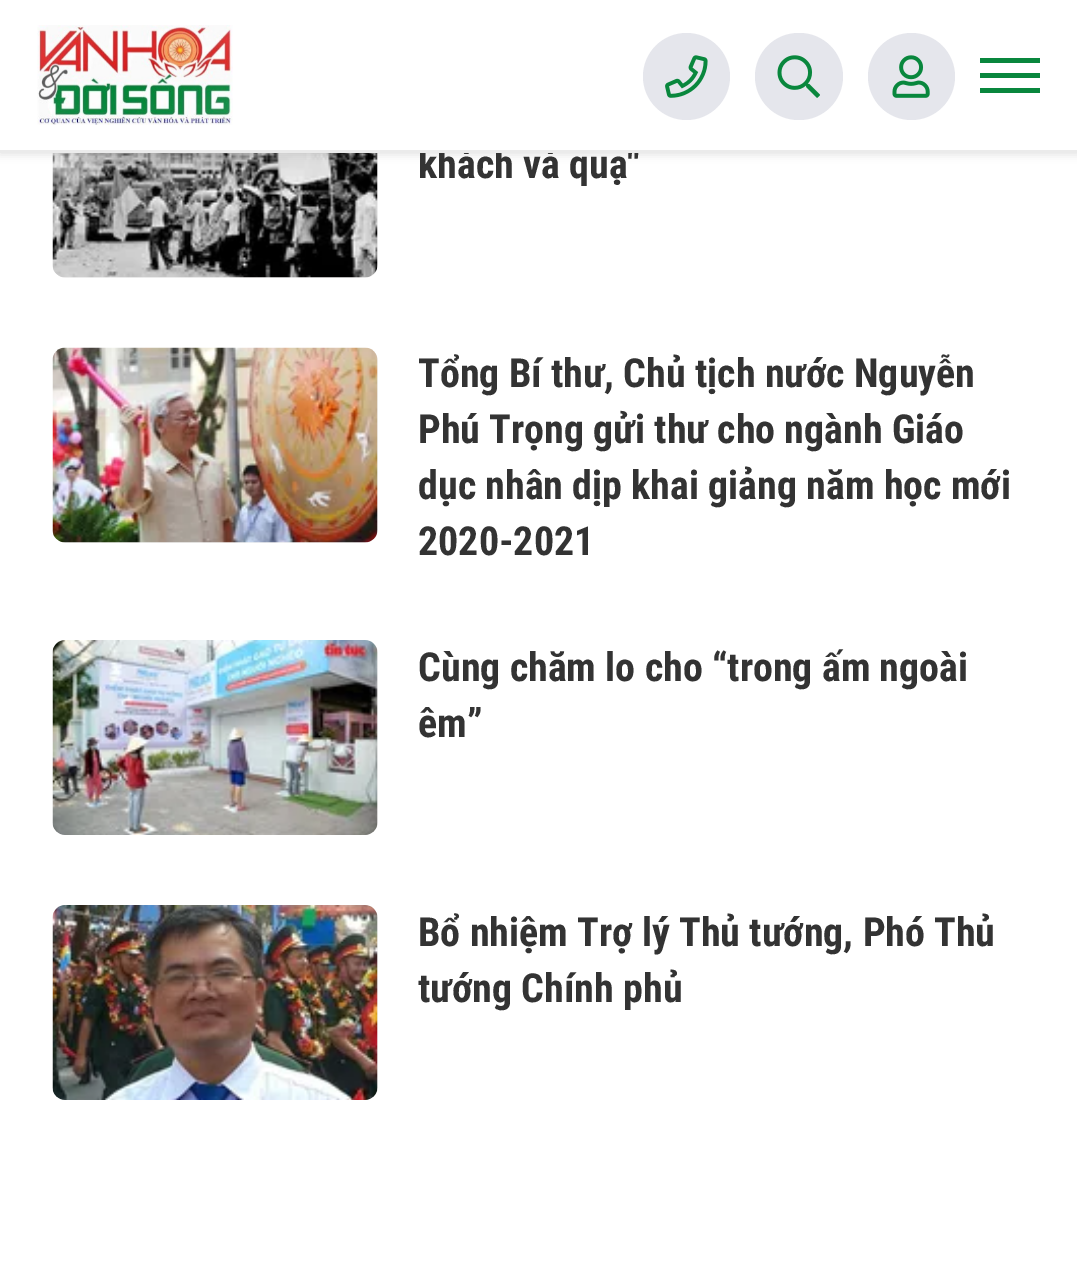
%!PS
<< /PageSize [1077 1277] /PageUsesTransparency true >> setpagedevice
/alpha { dup .setfillconstantalpha .setstrokeconstantalpha } def
/roundrect { 5 dict begin { /r /h /w /y /x } { exch def } forall
  x r add y moveto x w add y 2 copy h add r arct x w add y h add x 1 index r arct
  x y h add x y r arct x y 2 copy exch w add exch r arct closepath end } def
/shadow { 12 dict begin { /a /b /q /h /w /y /x } { exch def } forall gsave /was 0 def
  9 -2 -9 { dup b mul 4 div /e exch def 1 sub .425 mul 2.718 exch exp 1 add a .99 .min exch div /now exch def
    1 1 now sub 1 was sub div sub alpha /was now def
    w h .min e 2 mul add 0 gt { x e sub y e sub w e 2 mul add h e 2 mul add
      q e add b .6 mul add w h .min 2 div e add .min 0 .max roundrect fill } if } for grestore end } def
/picture { 5 dict begin { /h /w /y /x /name } { exch def } forall
  gsave x y translate w h scale
  w h 8 [w 0 0 h 0 0] name (r) file false 3 colorimage grestore end } def
0 .pushpdf14devicefilter
0 1277 translate 1 -1 scale
4 setmiterlimit
1 setgray
0 0 1077 1277 rectfill
0.961 0.957 0.957 setrgbcolor
53 83 325 195 13 roundrect fill
(img5.rgb) 52 153 326 125 picture
0 setgray
0 3 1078 152 0 4 0.1 shadow
/RobotoCondensed-Bold [40 0 0 -40 0 0] selectfont
0.2 setgray
418 178 moveto (khách và quạ") show
1 setgray
0 0 1077 150 rectfill
0.922 setgray
0 150 1077 3 rectfill
(img1.rgb) 37 25 196 100 picture
0.898 0.902 0.925 setrgbcolor
newpath 686.5 76.5 43.5 0 360 arc closepath fill
(img2.rgb) 665 55 43 43 picture
755 33 88 87 43.5 roundrect fill
(img3.rgb) 777 55 43 43 picture
newpath 911.5 76.5 43.5 0 360 arc closepath fill
(img4.rgb) 892 55 38 43 picture
0.035 0.529 0.239 setrgbcolor
980 73 60 5 rectfill
980 58 60 5 rectfill
980 88 60 5 rectfill
0.961 0.957 0.957 setrgbcolor
53 348 325 195 13 roundrect fill
(img6.rgb) 52 347 326 196 picture
0.2 setgray
418 387 moveto (Tổng Bí thư, Chủ tịch nước Nguyễn) show
418 443 moveto (Phú Trọng gửi thư cho ngành Giáo) show
418 499 moveto (dục nhân dịp khai giảng năm học mới) show
418 555 moveto (2020-2021) show
0.961 0.957 0.957 setrgbcolor
53 640 325 195 13 roundrect fill
(img7.rgb) 52 640 326 195 picture
0.2 setgray
418 681 moveto (Cùng chăm lo cho “trong ấm ngoài) show
418 737 moveto (êm”) show
0.961 0.957 0.957 setrgbcolor
53 905 325 195 13 roundrect fill
(img8.rgb) 52 905 326 195 picture
0.2 setgray
418 946 moveto (Bổ nhiệm Trợ lý Thủ tướng, Phó Thủ) show
418 1002 moveto (tướng Chính phủ) show
.poppdf14devicefilter showpage
